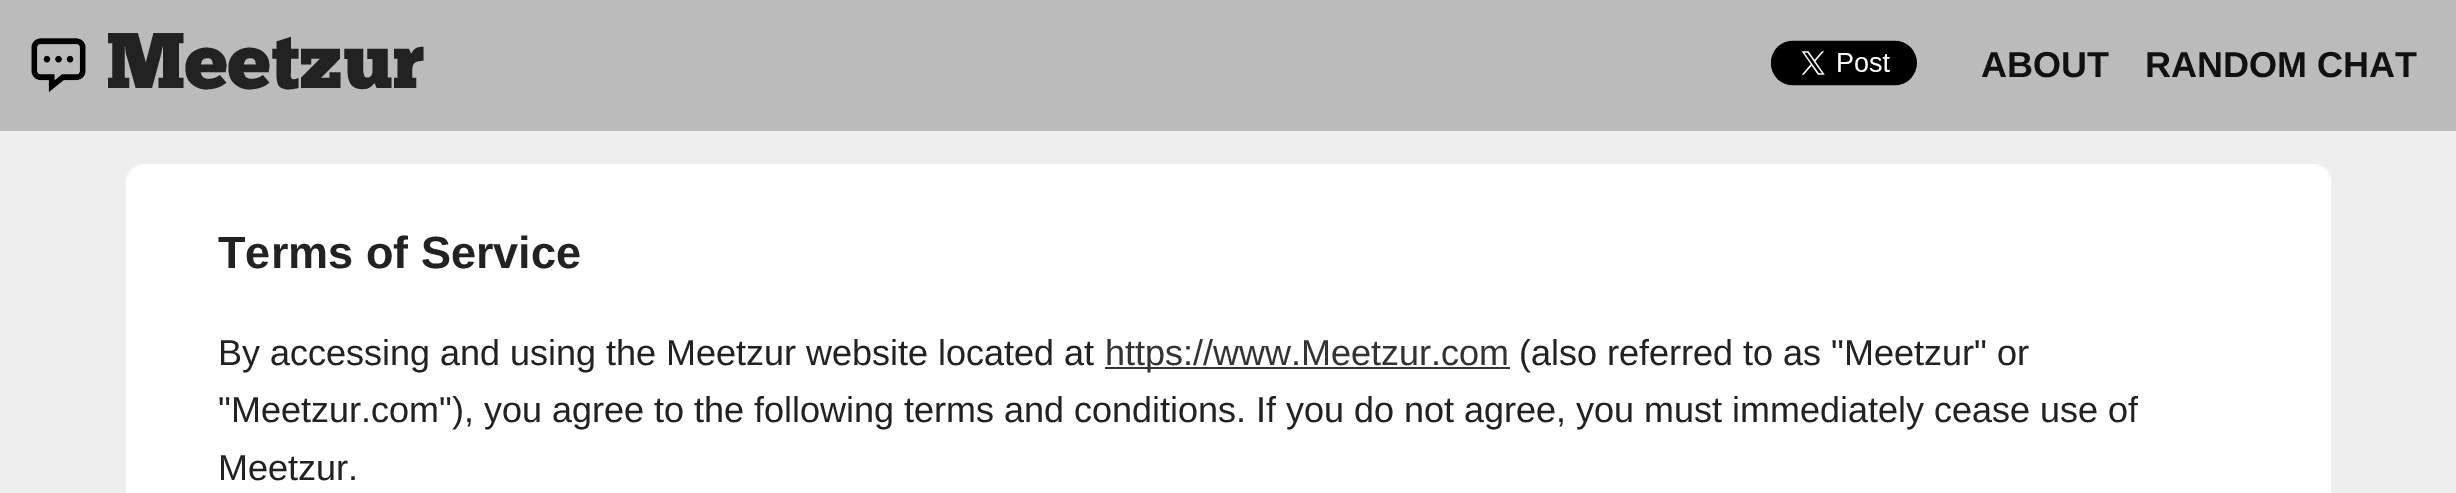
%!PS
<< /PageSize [2456 493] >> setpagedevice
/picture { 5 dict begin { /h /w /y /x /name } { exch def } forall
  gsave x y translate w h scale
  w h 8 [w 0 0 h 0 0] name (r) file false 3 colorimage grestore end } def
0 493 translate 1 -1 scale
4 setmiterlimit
0.933 setgray
0 0 2456 493 rectfill
0.733 setgray
0 0 2456 131 rectfill
(img1.rgb) 31 38 55 54 picture
/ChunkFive-Regular [78.75 0 0 -78.75 0 0] selectfont
0.133 setgray
106 88 moveto (Meetzur) show
(img2.rgb) 1770 40 147 46 picture
/LiberationSans-Bold [36 0 0 -36 0 0] selectfont
0.067 setgray
1981 77 moveto (ABOUT) show
2145 77 moveto (RANDOM CHAT) show
1 setgray
144 164 2169 18 rectfill
(img3.rgb) 126 164 18 18 picture
(img4.rgb) 2313 164 18 18 picture
126 182 2205 311 rectfill
/LiberationSans-Bold [45 0 0 -45 0 0] selectfont
0.133 setgray
218 268 moveto (Terms of Service) show
/LiberationSans-Regular [36 0 0 -36 0 0] selectfont
218 365 moveto (By accessing and using the Meetzur website located at) show
0.2 setgray
1105 367 405 2 rectfill
1105 365 moveto (https://www.Meetzur.com) show
0.133 setgray
1519 365 moveto (\(also referred to as "Meetzur" or) show
218 422 moveto ("Meetzur.com"\), you agree to the following terms and conditions. If you do not agree, you must immediately cease use of) show
218 480 moveto (Meetzur.) show
showpage
